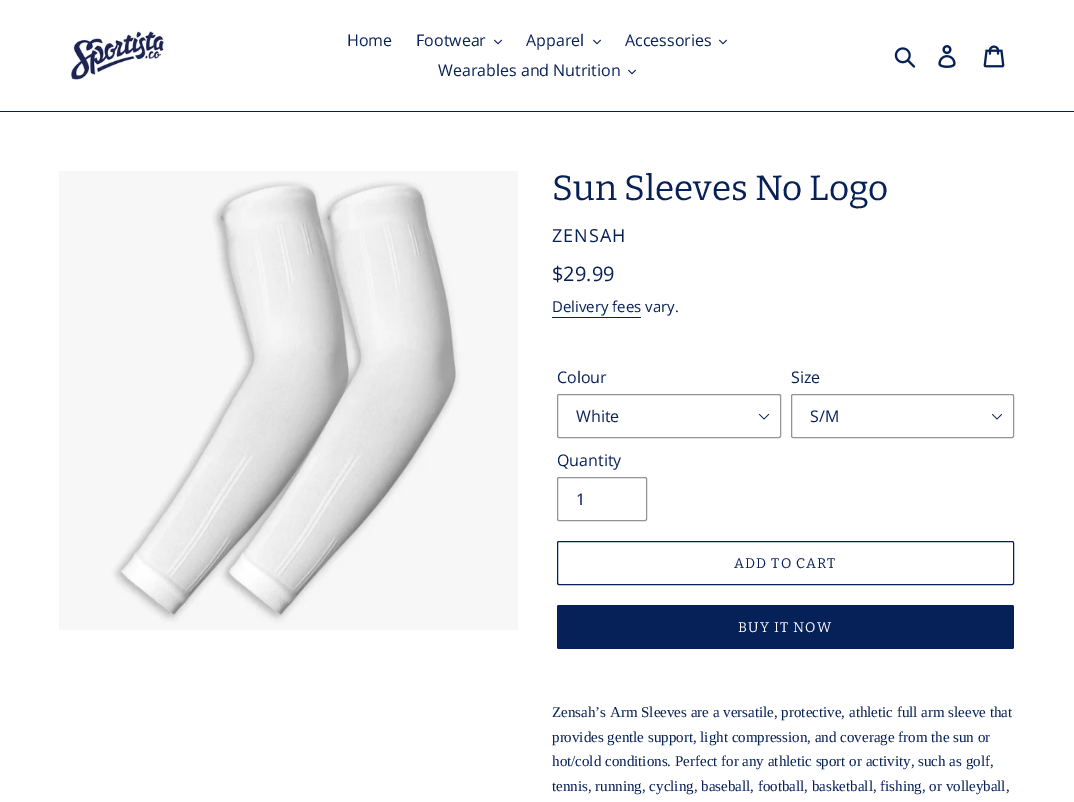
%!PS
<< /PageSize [1074 802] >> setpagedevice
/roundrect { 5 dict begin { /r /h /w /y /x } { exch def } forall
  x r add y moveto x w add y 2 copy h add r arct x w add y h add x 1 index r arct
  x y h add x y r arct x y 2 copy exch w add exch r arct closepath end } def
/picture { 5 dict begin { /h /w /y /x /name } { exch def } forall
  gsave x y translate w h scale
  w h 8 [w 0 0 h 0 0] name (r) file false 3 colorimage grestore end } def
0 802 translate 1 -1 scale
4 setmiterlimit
1 setgray
0 0 1074 802 rectfill
0.024 0.125 0.345 setrgbcolor
0 111 1074 1 rectfill
(img1.rgb) 71 31 95 50 picture
/OpenSans-Regular [16 0 0 -16 0 0] selectfont
347 46 moveto (Home) show
416 46 moveto (Footwear) show
(img2.rgb) 494 39 8 6 picture
526 46 moveto (Apparel) show
(img2.rgb) 593 39 8 6 picture
625 46 moveto (Accessories) show
(img2.rgb) 719 39 8 6 picture
438 76 moveto (Wearables and Nutrition) show
(img2.rgb) 628 69 8 6 picture
(img3.rgb) 894 47 22 21 picture
(img4.rgb) 938 45 18 23 picture
(img5.rgb) 983 45 22 23 picture
(img6.rgb) 59 171 459 459 picture
/Bitter-Regular [35 0 0 -35 0 0] selectfont
552 200 moveto (Sun Sleeves No Logo) show
/OpenSans-Regular [18 0 0 -18 0 0] selectfont
552 242 moveto 1 0 (ZENSAH) ashow
/OpenSans-Regular [20 0 0 -20 0 0] selectfont
552 281 moveto ($29.99) show
/OpenSans-Regular [15 0 0 -15 0 0] selectfont
552 312 moveto (Delivery fees vary.) show
552 317 89 1 rectfill
/OpenSans-Regular [16 0 0 -16 0 0] selectfont
557 383 moveto (Colour) show
(img7.rgb) 758 413 12 7 picture
0.58 setgray
557.5 394.5 223 43 1.5 roundrect stroke
0.024 0.125 0.345 setrgbcolor
576 422 moveto (White) show
791 383 moveto (Size) show
(img7.rgb) 991 413 12 7 picture
0.58 setgray
791.5 394.5 222 43 1.5 roundrect stroke
0.024 0.125 0.345 setrgbcolor
810 422 moveto (S/M) show
557 466 moveto (Quantity) show
0.58 setgray
557.5 477.5 89 43 1.5 roundrect stroke
0.024 0.125 0.345 setrgbcolor
576 505 moveto (1) show
557.5 541.5 456 43 1.5 roundrect stroke
/Bitter-Regular [14 0 0 -14 0 0] selectfont
734 568 moveto 1.1 0 (ADD TO CART) ashow
557 605 457 44 2 roundrect fill
1 setgray
738 632 moveto 1.1 0 (BUY IT NOW) ashow
/LiberationSerif-Regular [15 0 0 -15 0 0] selectfont
0.024 0.125 0.345 setrgbcolor
552 717 moveto (Zensah’s Arm Sleeves are a versatile, protective, athletic full arm sleeve that) show
552 742 moveto (provides gentle support, light compression, and coverage from the sun or) show
552 766 moveto (hot/cold conditions. Perfect for any athletic sport or activity, such as golf,) show
552 791 moveto (tennis, running, cycling, baseball, football, basketball, fishing, or volleyball,) show
showpage
